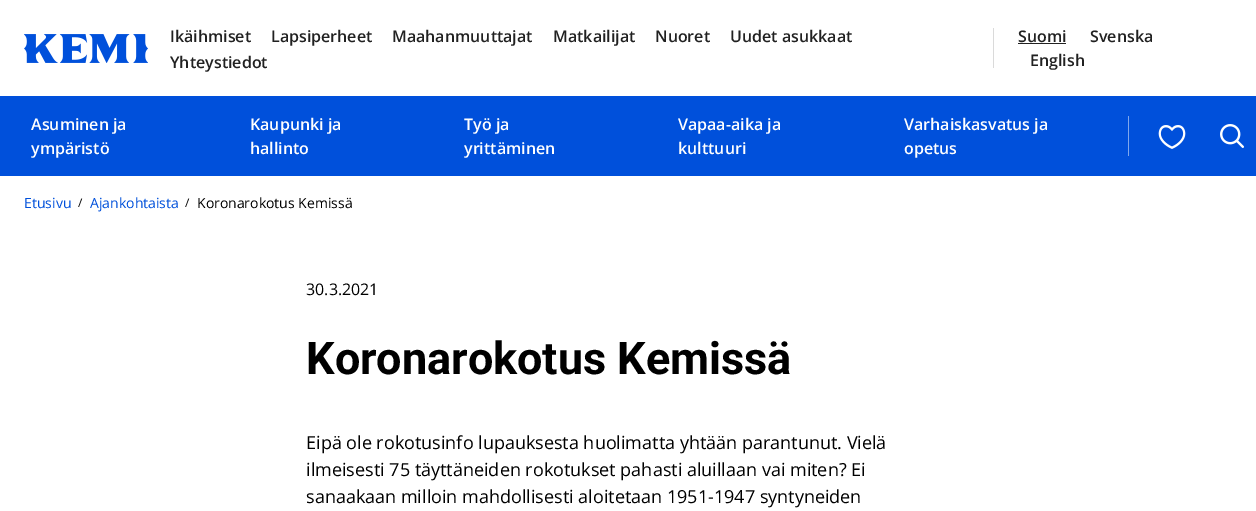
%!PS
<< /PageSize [1256 511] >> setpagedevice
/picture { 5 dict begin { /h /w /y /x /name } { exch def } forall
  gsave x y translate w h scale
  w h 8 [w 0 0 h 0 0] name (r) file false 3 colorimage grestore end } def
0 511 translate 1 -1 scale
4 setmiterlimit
1 setgray
0 0 1256 511 rectfill
(img1.rgb) 24 34 124 29 picture
/OpenSans-SemiBold [16 0 0 -16 0 0] selectfont
0.129 setgray
170 42 moveto (Ikäihmiset) show
271 42 moveto (Lapsiperheet) show
392 42 moveto (Maahanmuuttajat) show
553 42 moveto (Matkailijat) show
655 42 moveto (Nuoret) show
730 42 moveto (Uudet asukkaat) show
170 68 moveto (Yhteystiedot) show
0.855 setgray
993 28 1 40 rectfill
0.129 setgray
1018 42 moveto (Suomi) show
1018 43 48 1 rectfill
1090 42 moveto (Svenska) show
1030 66 moveto (English) show
0 0.314 0.859 setrgbcolor
0 96 1256 80 rectfill
1 setgray
31 130 moveto (Asuminen ja) show
31 154 moveto (ympäristö) show
250 130 moveto (Kaupunki ja) show
250 154 moveto (hallinto) show
464 130 moveto (Työ ja) show
464 154 moveto (yrittäminen) show
678 130 moveto (Vapaa-aika ja) show
678 154 moveto (kulttuuri) show
904 130 moveto (Varhaiskasvatus ja) show
904 154 moveto (opetus) show
0.502 0.659 0.929 setrgbcolor
1128 116 1 40 rectfill
(img2.rgb) 1158 125 28 24 picture
(img3.rgb) 1220 124 24 24 picture
/OpenSans-Regular [14 0 0 -14 0 0] selectfont
0 0.314 0.859 setrgbcolor
24 208 moveto (Etusivu) show
/OpenSans-Regular [12 0 0 -12 0 0] selectfont
0 setgray
78 207 moveto (/) show
/OpenSans-Regular [14 0 0 -14 0 0] selectfont
0 0.314 0.859 setrgbcolor
90 208 moveto (Ajankohtaista) show
/OpenSans-Regular [12 0 0 -12 0 0] selectfont
0 setgray
185 207 moveto (/) show
/OpenSans-Regular [14 0 0 -14 0 0] selectfont
197 208 moveto (Koronarokotus Kemissä) show
/OpenSans-Regular [16 0 0 -16 0 0] selectfont
306 295 moveto (30.3.2021) show
/Roboto-Bold [45 0 0 -45 0 0] selectfont
306 374 moveto (Koronarokotus Kemissä) show
/OpenSans-Regular [18 0 0 -18 0 0] selectfont
306 449 moveto (Eipä ole rokotusinfo lupauksesta huolimatta yhtään parantunut. Vielä) show
306 476 moveto (ilmeisesti 75 täyttäneiden rokotukset pahasti aluillaan vai miten? Ei) show
306 503 moveto (sanaakaan milloin mahdollisesti aloitetaan 1951-1947 syntyneiden) show
showpage
